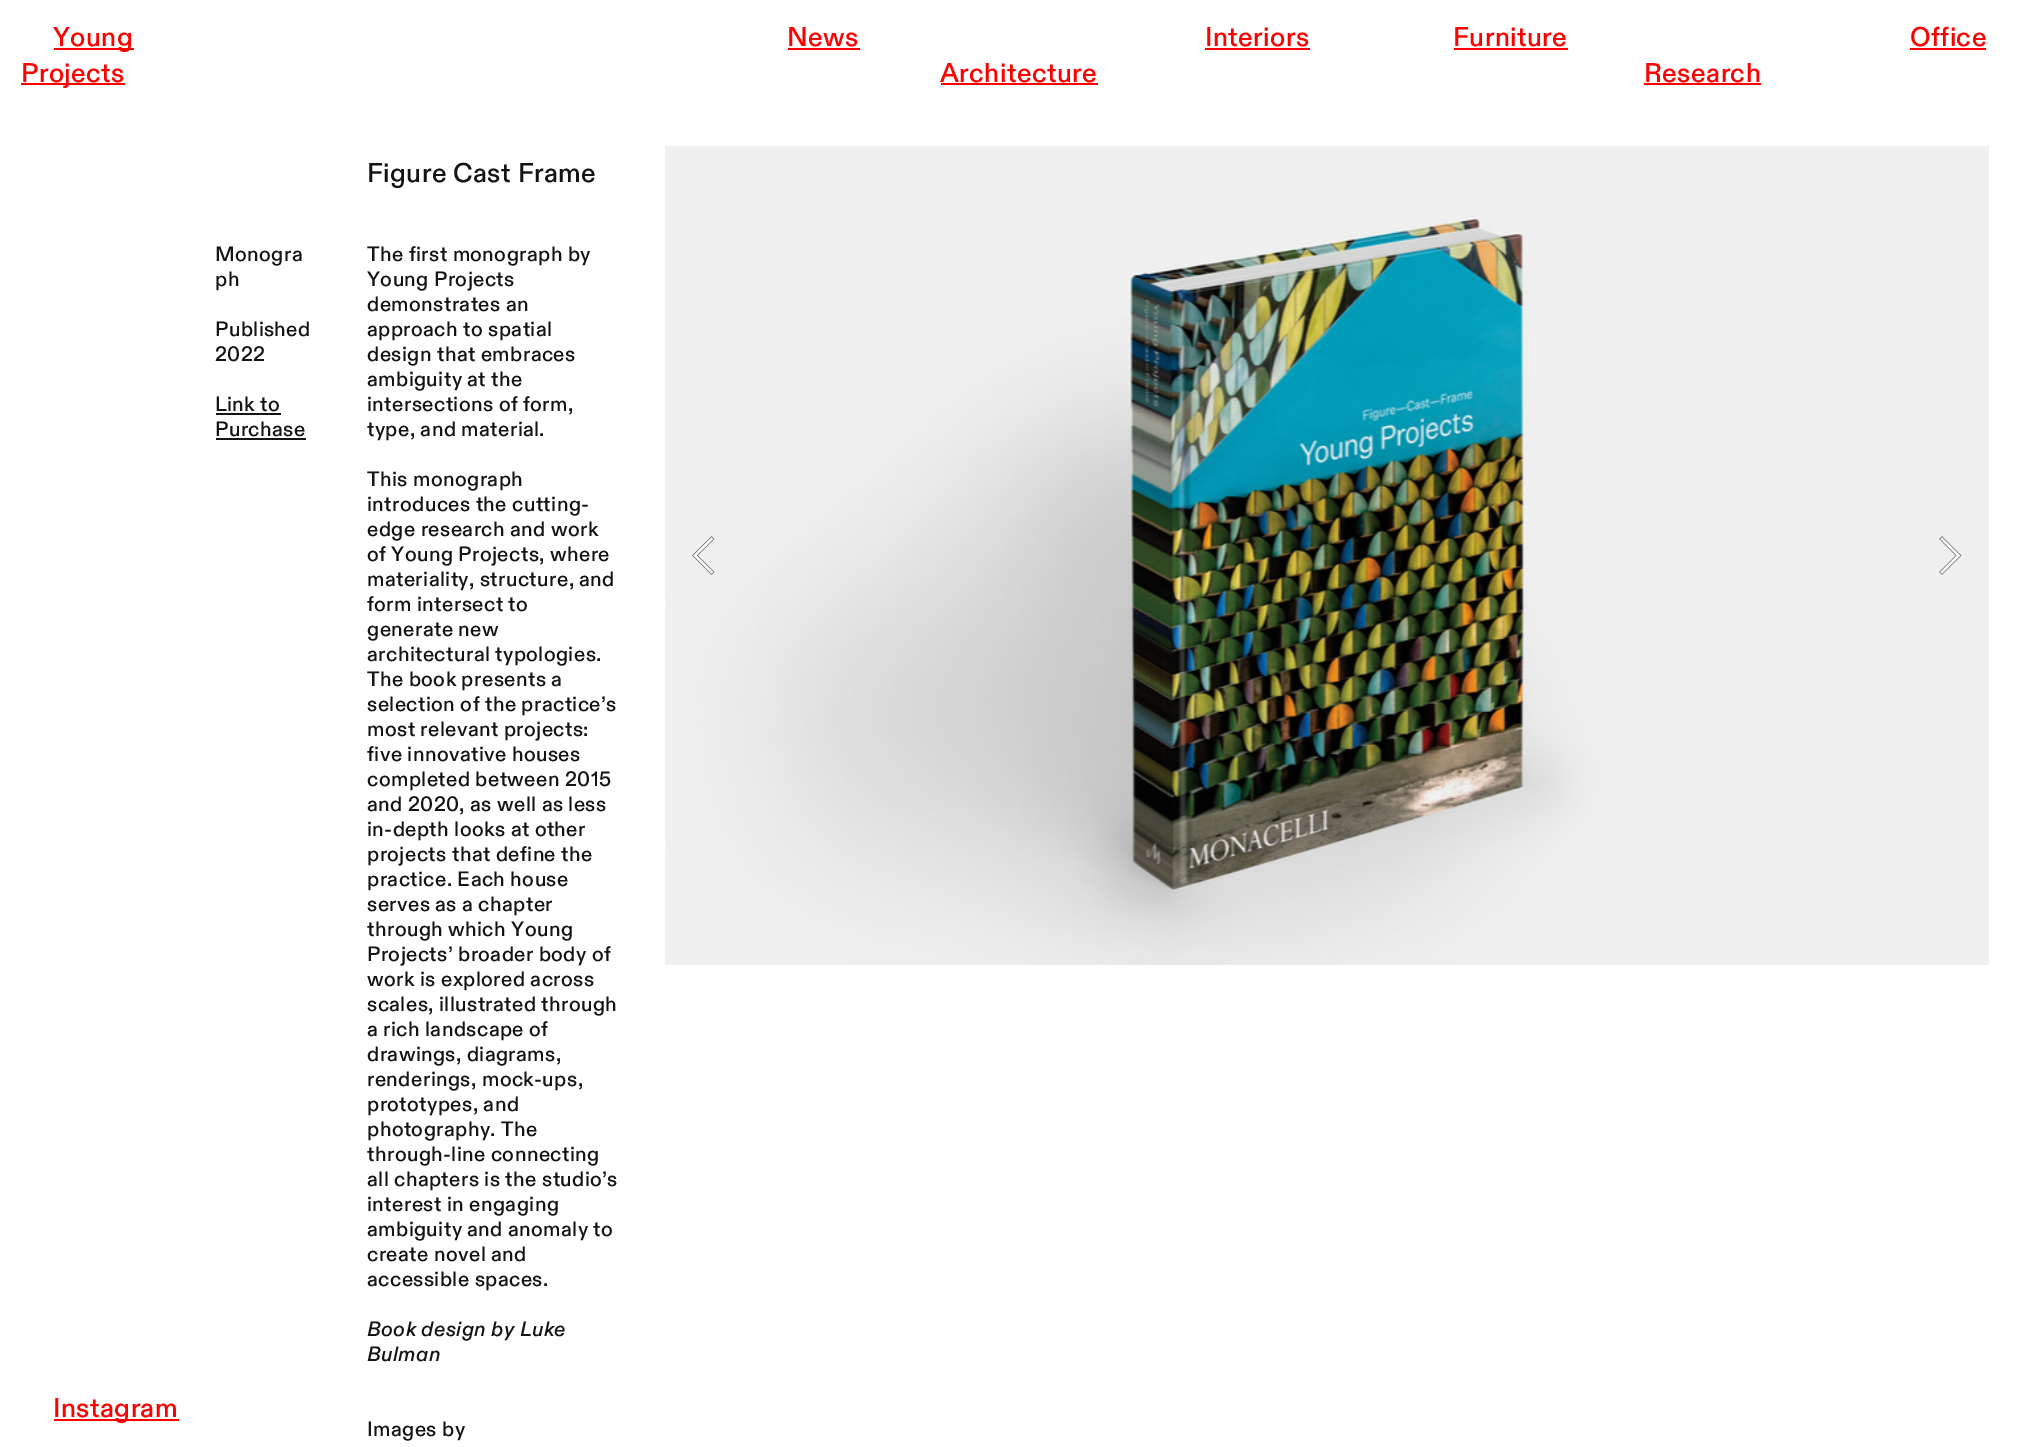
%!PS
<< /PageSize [2039 1447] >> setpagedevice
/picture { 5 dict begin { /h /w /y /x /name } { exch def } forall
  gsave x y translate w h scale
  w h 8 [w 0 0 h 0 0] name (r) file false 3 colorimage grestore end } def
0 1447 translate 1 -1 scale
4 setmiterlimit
1 setgray
0 0 2039 1447 rectfill
1 0 0 setrgbcolor
54 48 80 2 rectfill
/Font-Medium [27 0 0 -27 0 0] selectfont
53 46 moveto 0.4 0 (Young) ashow
21 83 104 2 rectfill
21 82 moveto 0.4 0 (Projects) ashow
787 46 moveto 0.4 0 (News) ashow
788 48 72 2 rectfill
1205 46 moveto 0.4 0 (Interiors) ashow
1205 48 105 2 rectfill
1453 46 moveto 0.4 0 (Furniture) ashow
1454 48 114 2 rectfill
1910 46 moveto 0.4 0 (Office) ashow
1910 48 76 2 rectfill
940 82 moveto 0.4 0 (Architecture) ashow
941 83 157 2 rectfill
1644 82 moveto 0.4 0 (Research) ashow
1644 83 117 2 rectfill
54 1419 125 2 rectfill
53 1417 moveto 0.4 0 (Instagram) ashow
0.078 setgray
367 182 moveto 0.4 0 (Figure Cast Frame) ashow
/Font-Medium [20.8 0 0 -20.8 0 0] selectfont
215 261 moveto 0.4 0 (Monogra) ashow
215 286 moveto 0.4 0 (ph) ashow
215 336 moveto 0.4 0 (Published) ashow
215 361 moveto 0.4 0 (2022) ashow
215 411 moveto 0.4 0 (Link to) ashow
216 413 65 2 rectfill
215 436 moveto 0.4 0 (Purchase) ashow
216 438 90 2 rectfill
367 261 moveto 0.4 0 (The first monograph by) ashow
367 286 moveto 0.4 0 (Young Projects) ashow
367 311 moveto 0.4 0 (demonstrates an) ashow
367 336 moveto 0.4 0 (approach to spatial) ashow
367 361 moveto 0.4 0 (design that embraces) ashow
367 386 moveto 0.4 0 (ambiguity at the) ashow
367 411 moveto 0.4 0 (intersections of form,) ashow
367 436 moveto 0.4 0 (type, and material.) ashow
367 486 moveto 0.4 0 (This monograph) ashow
367 511 moveto 0.4 0 (introduces the cutting-) ashow
367 536 moveto 0.4 0 (edge research and work) ashow
367 561 moveto 0.4 0 (of Young Projects, where) ashow
367 586 moveto 0.4 0 (materiality, structure, and) ashow
367 611 moveto 0.4 0 (form intersect to) ashow
367 636 moveto 0.4 0 (generate new) ashow
367 661 moveto 0.4 0 (architectural typologies.) ashow
367 686 moveto 0.4 0 (The book presents a) ashow
367 711 moveto 0.4 0 (selection of the practice’s) ashow
367 736 moveto 0.4 0 (most relevant projects:) ashow
367 761 moveto 0.4 0 (five innovative houses) ashow
367 786 moveto 0.4 0 (completed between 2015) ashow
367 811 moveto 0.4 0 (and 2020, as well as less) ashow
367 836 moveto 0.4 0 (in-depth looks at other) ashow
367 861 moveto 0.4 0 (projects that define the) ashow
367 886 moveto 0.4 0 (practice. Each house) ashow
367 911 moveto 0.4 0 (serves as a chapter) ashow
367 936 moveto 0.4 0 (through which Young) ashow
367 961 moveto 0.4 0 (Projects’ broader body of) ashow
367 986 moveto 0.4 0 (work is explored across) ashow
367 1011 moveto 0.4 0 (scales, illustrated through) ashow
367 1036 moveto 0.4 0 (a rich landscape of) ashow
367 1061 moveto 0.4 0 (drawings, diagrams,) ashow
367 1086 moveto 0.4 0 (renderings, mock-ups,) ashow
367 1111 moveto 0.4 0 (prototypes, and) ashow
367 1136 moveto 0.4 0 (photography. The) ashow
367 1161 moveto 0.4 0 (through-line connecting) ashow
367 1186 moveto 0.4 0 (all chapters is the studio’s) ashow
367 1211 moveto 0.4 0 (interest in engaging) ashow
367 1236 moveto 0.4 0 (ambiguity and anomaly to) ashow
367 1261 moveto 0.4 0 (create novel and) ashow
367 1286 moveto 0.4 0 (accessible spaces.) ashow
/Font-MediumItalic [20.8 0 0 -20.8 0 0] selectfont
367 1336 moveto 0.4 0 (Book design by Luke) ashow
367 1361 moveto 0.4 0 (Bulman) ashow
/Font-Medium [20.8 0 0 -20.8 0 0] selectfont
367 1436 moveto 0.4 0 (Images by) ashow
(img1.rgb) 665 146 1324 819 picture
0.376 setgray
3.8 setlinewidth
2 setlinecap
newpath 711.5 572 moveto 695 555.5 lineto 711.5 539 lineto stroke
1 setgray
2.2 setlinewidth
newpath 711.5 572 moveto 695 555.5 lineto 711.5 539 lineto stroke
0.376 setgray
3.8 setlinewidth
newpath 1942 572 moveto 1958.5 555.5 lineto 1942 539 lineto stroke
1 setgray
2.2 setlinewidth
newpath 1942 572 moveto 1958.5 555.5 lineto 1942 539 lineto stroke
showpage
